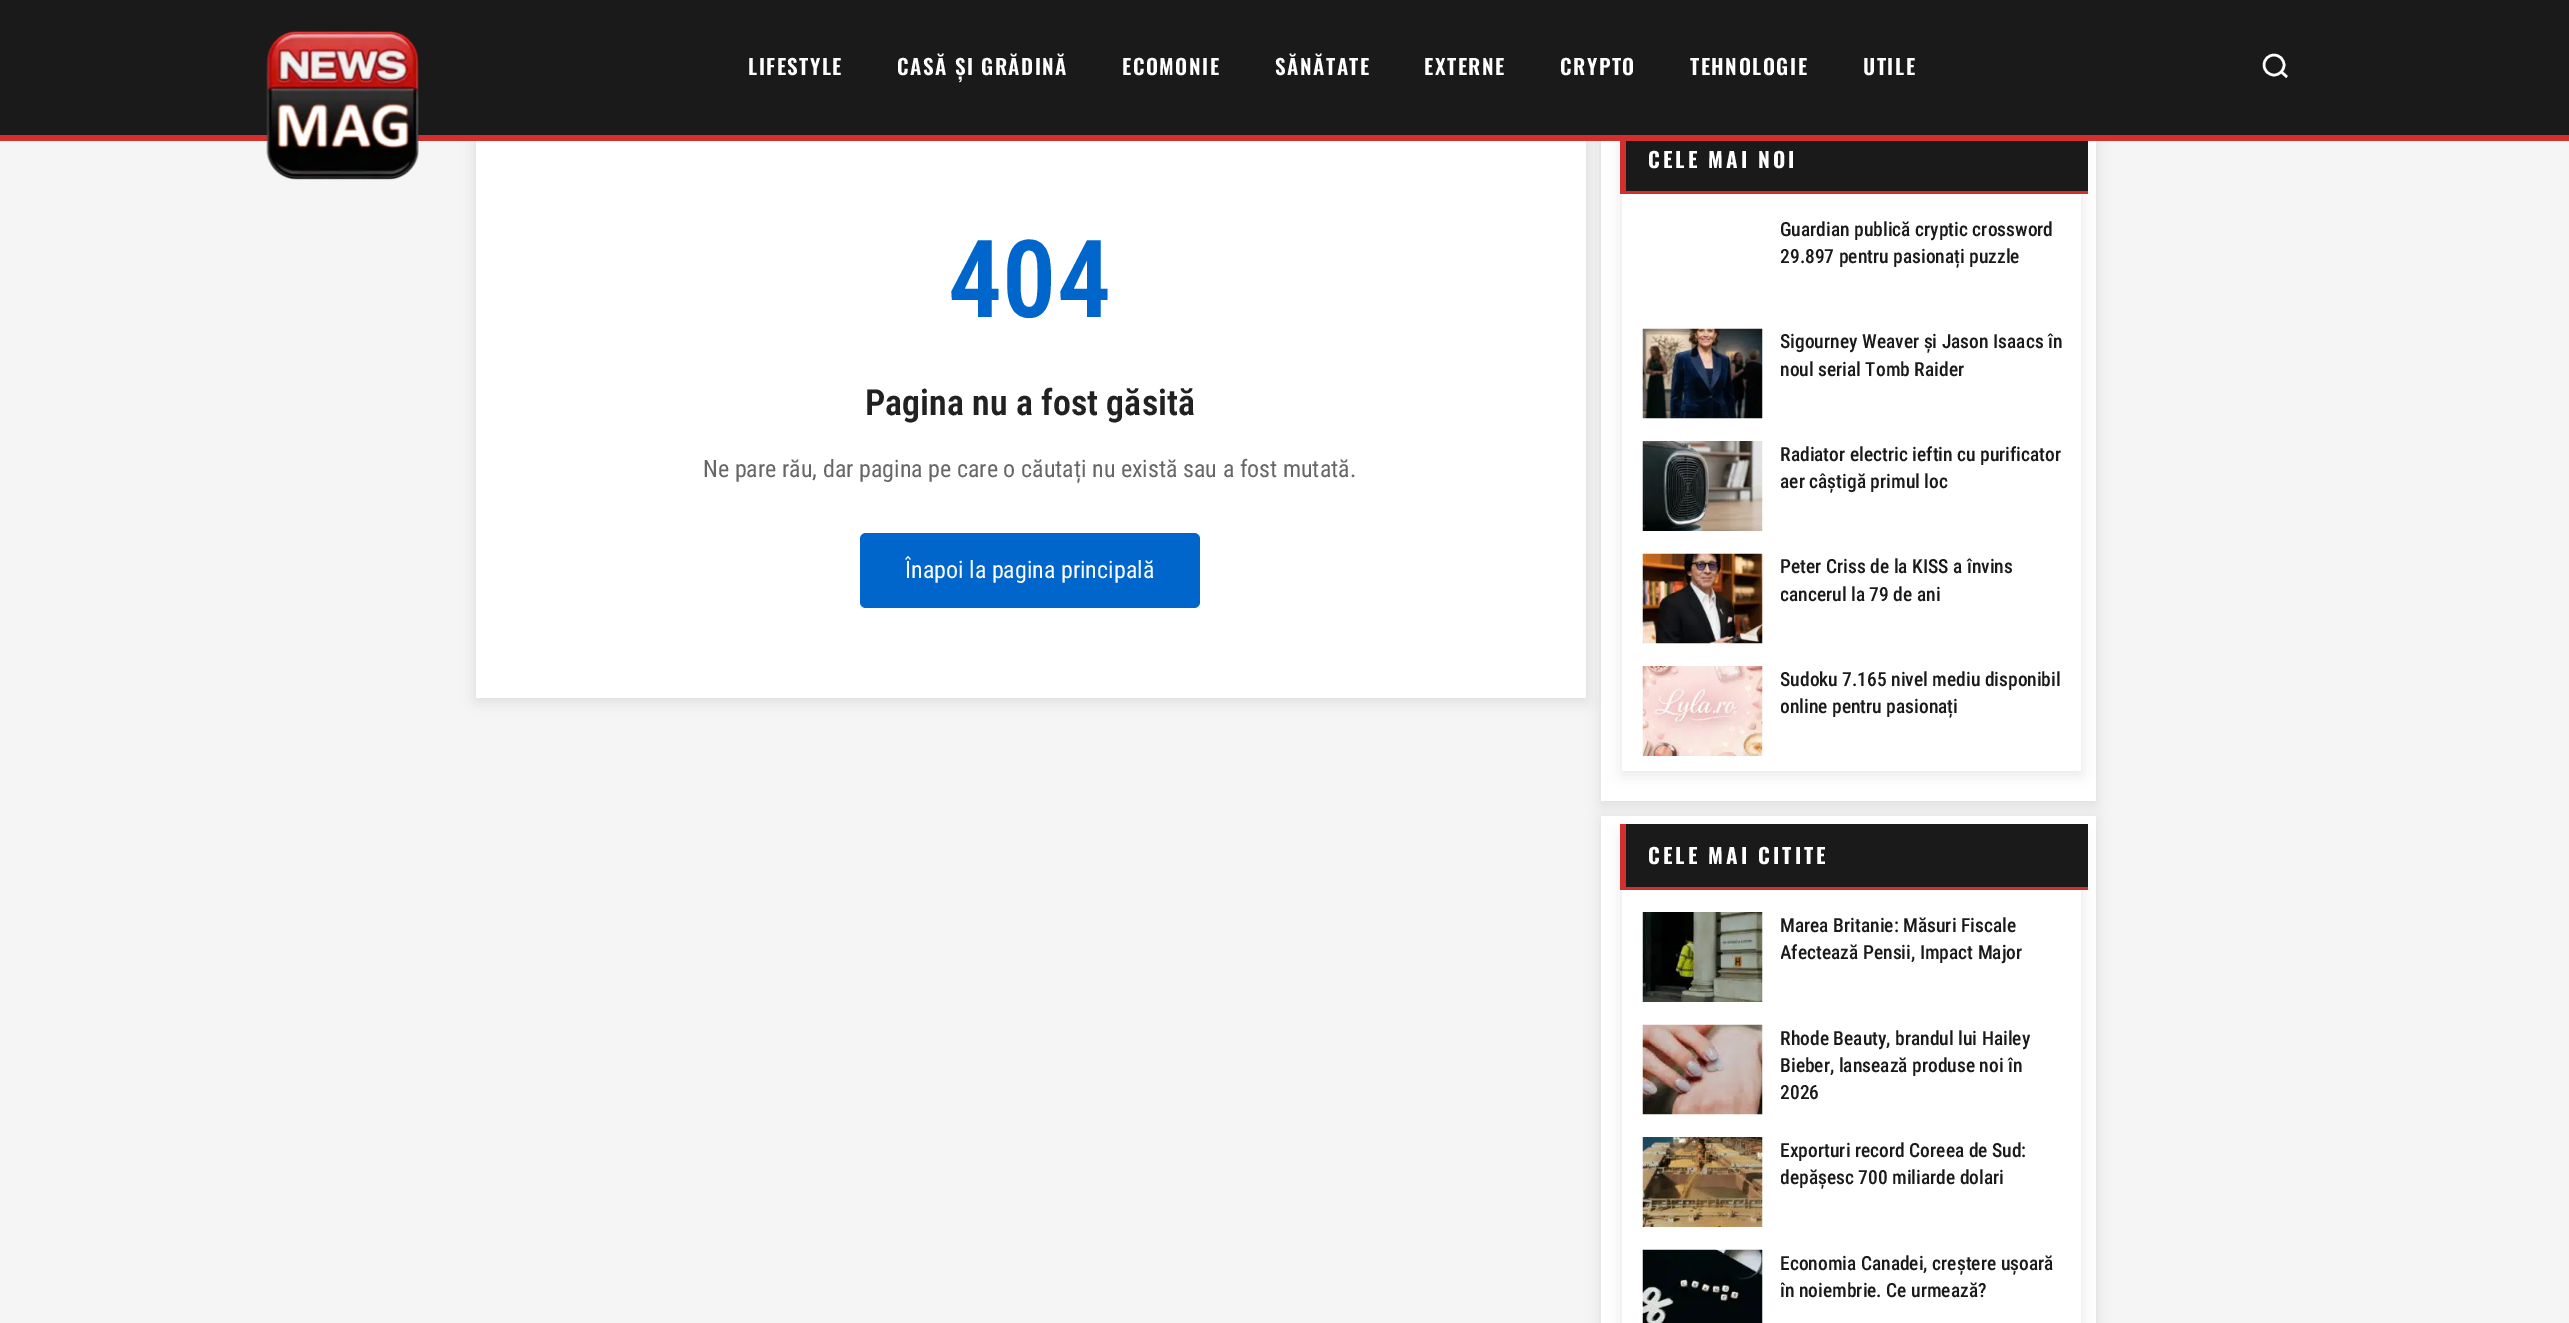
%!PS
<< /PageSize [2569 1323] /PageUsesTransparency true >> setpagedevice
/alpha { dup .setfillconstantalpha .setstrokeconstantalpha } def
/roundrect { 5 dict begin { /r /h /w /y /x } { exch def } forall
  x r add y moveto x w add y 2 copy h add r arct x w add y h add x 1 index r arct
  x y h add x y r arct x y 2 copy exch w add exch r arct closepath end } def
/shadow { 12 dict begin { /a /b /q /h /w /y /x } { exch def } forall gsave /was 0 def
  9 -2 -9 { dup b mul 4 div /e exch def 1 sub .425 mul 2.718 exch exp 1 add a .99 .min exch div /now exch def
    1 1 now sub 1 was sub div sub alpha /was now def
    w h .min e 2 mul add 0 gt { x e sub y e sub w e 2 mul add h e 2 mul add
      q e add b .6 mul add w h .min 2 div e add .min 0 .max roundrect fill } if } for grestore end } def
/picture { 5 dict begin { /h /w /y /x /name } { exch def } forall
  gsave x y translate w h scale
  w h 8 [w 0 0 h 0 0] name (r) file false 3 colorimage grestore end } def
0 .pushpdf14devicefilter
0 1323 translate 1 -1 scale
4 setmiterlimit
0.961 setgray
0 0 2569 1323 rectfill
0 setgray
476 123 1110 578 0 7.5 0.1 shadow
1 setgray
476 141 1110 557 rectfill
0 setgray
1601 123 495 681 0 7.5 0.1 shadow
1 setgray
1601 141 495 660 rectfill
0 setgray
1622 138 459 636 0 7.5 0.1 shadow
0.102 setgray
0 0 2569 135 rectfill
0.827 0.184 0.184 setrgbcolor
0 135 2569 6 rectfill
(img1.rgb) 266 31 153 149 picture
/Oswald-SemiBold [21 0 0 -21 0 0] selectfont
1 setgray
748 75 moveto 1.5 0 (LIFESTYLE) ashow
897 75 moveto 1.5 0 (CASĂ ȘI GRĂDINĂ) ashow
1122 75 moveto 1.5 0 (ECOMONIE) ashow
1275 75 moveto 1.5 0 (SĂNĂTATE) ashow
1424 75 moveto 1.5 0 (EXTERNE) ashow
1560 75 moveto 1.5 0 (CRYPTO) ashow
1690 75 moveto 1.5 0 (TEHNOLOGIE) ashow
1863 75 moveto 1.5 0 (UTILE) ashow
2.5 setlinewidth
newpath 2274 65 10 0 360 arc closepath stroke
newpath 2287 77 moveto 2281.5 72 lineto stroke
/RobotoCondensed-SemiBold [108 0 0 -108 0 0] selectfont
0 0.4 0.8 setrgbcolor
948 317 moveto (404) show
/RobotoCondensed-SemiBold [36 0 0 -36 0 0] selectfont
0.129 setgray
865 415 moveto (Pagina nu a fost găsită) show
/RobotoCondensed-Regular [24 0 0 -24 0 0] selectfont
0.4 setgray
703 477 moveto (Ne pare rău, dar pagina pe care o căutați nu există sau a fost mutată.) show
0 0.4 0.8 setrgbcolor
860 533 340 75 6 roundrect fill
1 setgray
905 578 moveto (Înapoi la pagina principală) show
1622 194 459 577 rectfill
0.102 setgray
1626 141 462 50 rectfill
0.827 0.184 0.184 setrgbcolor
1620 191 468 3 rectfill
1620 141 6 53 rectfill
/Oswald-Bold [21 0 0 -21 0 0] selectfont
1 setgray
1648 168 moveto 3 0 (CELE MAI NOI) ashow
gsave
1781 216 285 90 rectclip
/RobotoCondensed-Medium [19.5 0 0 -19.5 0 0] selectfont
0.102 setgray
1780 236 moveto (Guardian publică cryptic crossword) show
1780 263 moveto (29.897 pentru pasionați puzzle) show
grestore
(img2.rgb) 1642 328 121 91 picture
gsave
1781 329 285 90 rectclip
/RobotoCondensed-Medium [19.5 0 0 -19.5 0 0] selectfont
0.102 setgray
1780 348 moveto (Sigourney Weaver și Jason Isaacs în) show
1780 376 moveto (noul serial Tomb Raider) show
grestore
(img3.rgb) 1642 441 121 90 picture
/RobotoCondensed-Medium [19.5 0 0 -19.5 0 0] selectfont
0.102 setgray
1780 461 moveto (Radiator electric ieftin cu purificator) show
gsave
1781 441 285 90 rectclip
1780 488 moveto (aer câștigă primul loc) show
grestore
(img4.rgb) 1642 553 121 91 picture
1780 573 moveto (Peter Criss de la KISS a învins) show
gsave
1781 554 285 90 rectclip
1780 601 moveto (cancerul la 79 de ani) show
grestore
(img5.rgb) 1642 666 121 90 picture
gsave
1781 666 285 90 rectclip
1780 686 moveto (Sudoku 7.165 nivel mediu disponibil) show
1780 713 moveto (online pentru pasionați) show
grestore
0 setgray
1601 819 495 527 0 7.5 0.1 shadow
1 setgray
1601 816 495 507 rectfill
0 setgray
1622 834 459 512 0 7.5 0.1 shadow
1 setgray
1622 890 459 433 rectfill
0.102 setgray
1626 824 462 63 rectfill
0.827 0.184 0.184 setrgbcolor
1620 887 468 3 rectfill
1620 824 6 66 rectfill
/Oswald-Bold [21 0 0 -21 0 0] selectfont
1 setgray
1648 864 moveto 3 0 (CELE MAI CITITE) ashow
(img6.rgb) 1642 912 121 90 picture
/RobotoCondensed-Medium [19.5 0 0 -19.5 0 0] selectfont
0.102 setgray
1780 932 moveto (Marea Britanie: Măsuri Fiscale) show
gsave
1781 912 285 90 rectclip
1780 959 moveto (Afectează Pensii, Impact Major) show
grestore
(img7.rgb) 1642 1024 121 91 picture
1780 1045 moveto (Rhode Beauty, brandul lui Hailey) show
1780 1072 moveto (Bieber, lansează produse noi în) show
gsave
1781 1025 285 90 rectclip
1780 1099 moveto (2026) show
grestore
(img8.rgb) 1642 1137 121 90 picture
1780 1157 moveto (Exporturi record Coreea de Sud:) show
gsave
1781 1137 285 90 rectclip
1780 1184 moveto (depășesc 700 miliarde dolari) show
grestore
(img9.rgb) 1642 1249 121 74 picture
1780 1270 moveto (Economia Canadei, creștere ușoară) show
gsave
1781 1250 285 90 rectclip
1780 1297 moveto (în noiembrie. Ce urmează?) show
grestore
.poppdf14devicefilter showpage
